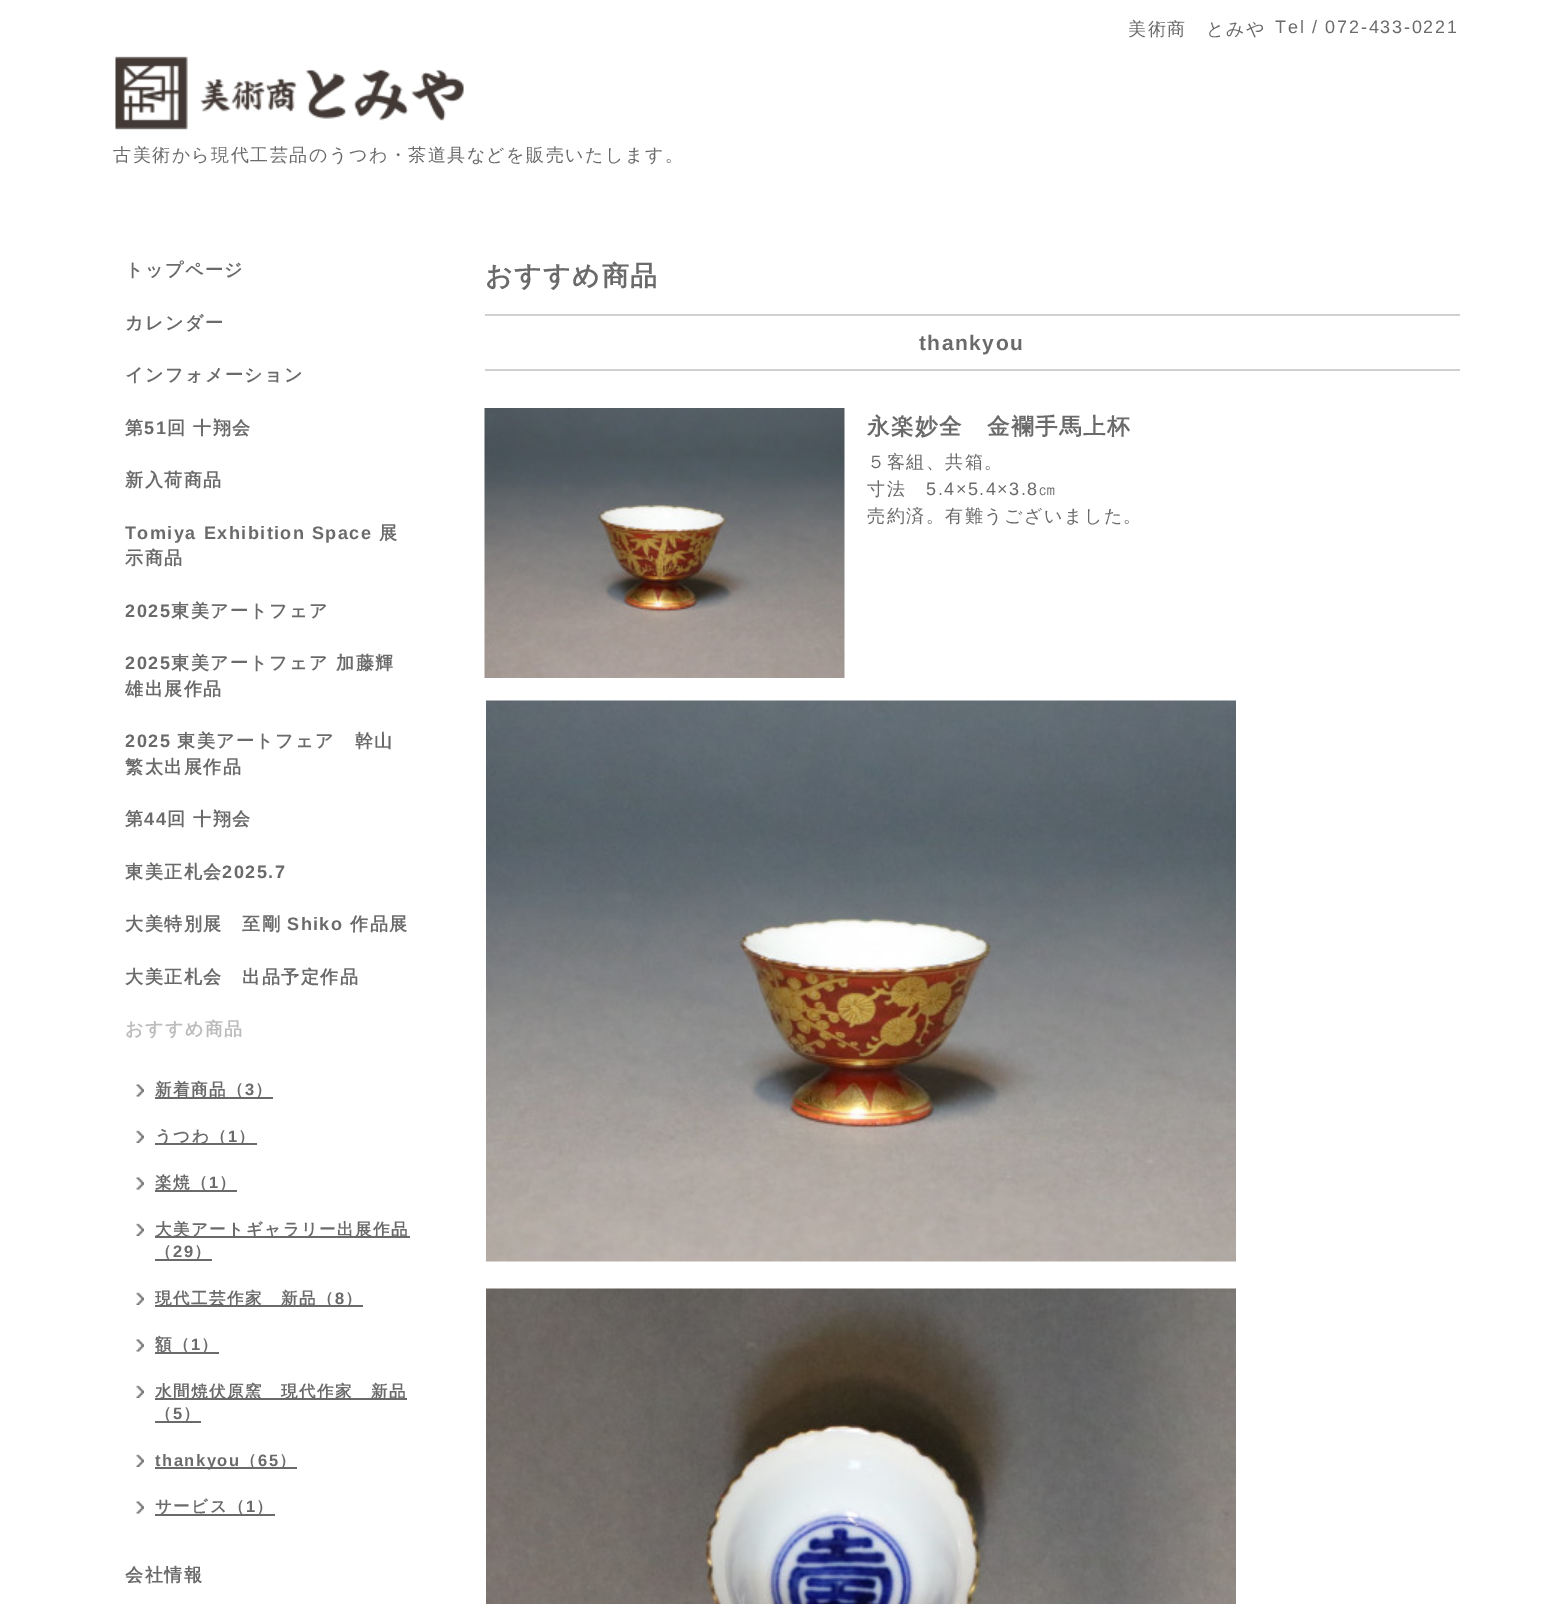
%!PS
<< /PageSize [1568 1604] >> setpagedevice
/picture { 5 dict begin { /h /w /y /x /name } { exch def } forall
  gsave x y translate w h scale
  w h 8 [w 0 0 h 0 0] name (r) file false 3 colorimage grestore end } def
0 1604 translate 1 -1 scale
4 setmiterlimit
1 setgray
0 0 1568 1604 rectfill
/WenQuanYiZenHei-Medium [18 0 0 -18 0 0] selectfont
0.416 setgray
1128 35 moveto 1.5 0 (美術商　とみや) ashow
/LiberationSans-Regular [18 0 0 -18 0 0] selectfont
1275 33 moveto 1.75 0 (Tel / 072-433-0221) ashow
(img1.rgb) 115 56 349 74 picture
/WenQuanYiZenHei-Medium [18 0 0 -18 0 0] selectfont
113 161 moveto 1.5 0 (古美術から現代工芸品のうつわ・茶道具などを販売いたします。) ashow
/WenQuanYiZenHei-Bold [18 0 0 -18 0 0] selectfont
125 276 moveto 1.5 0 (トップページ) ashow
125 329 moveto 1.5 0 (カレンダー) ashow
125 381 moveto 1.5 0 (インフォメーション) ashow
125 434 moveto 1.5 0 (第) ashow
/LiberationSans-Bold [18 0 0 -18 0 0] selectfont
144 434 moveto 1.5 0 (51) ashow
/WenQuanYiZenHei-Bold [18 0 0 -18 0 0] selectfont
167 434 moveto 1.5 0 (回 十翔会) ashow
125 486 moveto 1.5 0 (新入荷商品) ashow
/LiberationSans-Bold [18 0 0 -18 0 0] selectfont
125 539 moveto 1.5 0 (Tomiya Exhibition Space) ashow
/WenQuanYiZenHei-Bold [18 0 0 -18 0 0] selectfont
379 539 moveto 1.5 0 (展) ashow
125 564 moveto 1.5 0 (示商品) ashow
/LiberationSans-Bold [18 0 0 -18 0 0] selectfont
125 617 moveto 1.5 0 (2025) ashow
/WenQuanYiZenHei-Bold [18 0 0 -18 0 0] selectfont
171 617 moveto 1.5 0 (東美アートフェア) ashow
/LiberationSans-Bold [18 0 0 -18 0 0] selectfont
125 669 moveto 1.5 0 (2025) ashow
/WenQuanYiZenHei-Bold [18 0 0 -18 0 0] selectfont
171 669 moveto 1.5 0 (東美アートフェア 加藤輝) ashow
125 695 moveto 1.5 0 (雄出展作品) ashow
/LiberationSans-Bold [18 0 0 -18 0 0] selectfont
125 747 moveto 1.5 0 (2025) ashow
/WenQuanYiZenHei-Bold [18 0 0 -18 0 0] selectfont
177 747 moveto 1.5 0 (東美アートフェア　幹山) ashow
125 773 moveto 1.5 0 (繁太出展作品) ashow
125 825 moveto 1.5 0 (第) ashow
/LiberationSans-Bold [18 0 0 -18 0 0] selectfont
144 825 moveto 1.5 0 (44) ashow
/WenQuanYiZenHei-Bold [18 0 0 -18 0 0] selectfont
167 825 moveto 1.5 0 (回 十翔会) ashow
125 878 moveto 1.5 0 (東美正札会) ashow
/LiberationSans-Bold [18 0 0 -18 0 0] selectfont
222 878 moveto 1.5 0 (2025.7) ashow
/WenQuanYiZenHei-Bold [18 0 0 -18 0 0] selectfont
125 930 moveto 1.5 0 (大美特別展　至剛) ashow
/LiberationSans-Bold [18 0 0 -18 0 0] selectfont
287 930 moveto 1.5 0 (Shiko) ashow
/WenQuanYiZenHei-Bold [18 0 0 -18 0 0] selectfont
350 930 moveto 1.5 0 (作品展) ashow
125 983 moveto 1.5 0 (大美正札会　出品予定作品) ashow
0.737 setgray
125 1035 moveto 1.5 0 (おすすめ商品) ashow
(img2.rgb) 136 1084 8 13 picture
0.416 setgray
155 1097 118 2 rectfill
/WenQuanYiZenHei-Bold [16.5 0 0 -16.5 0 0] selectfont
155 1095 moveto 1.5 0 (新着商品（) ashow
/LiberationSans-Bold [16.5 0 0 -16.5 0 0] selectfont
245 1095 moveto 1.5 0 (3) ashow
/WenQuanYiZenHei-Bold [16.5 0 0 -16.5 0 0] selectfont
255 1095 moveto 1.5 0 (）) ashow
(img3.rgb) 136 1130 8 13 picture
155 1143 102 2 rectfill
155 1142 moveto 1.5 0 (うつわ（) ashow
/LiberationSans-Bold [16.5 0 0 -16.5 0 0] selectfont
228 1142 moveto 1.5 0 (1) ashow
/WenQuanYiZenHei-Bold [16.5 0 0 -16.5 0 0] selectfont
238 1142 moveto 1.5 0 (）) ashow
(img2.rgb) 136 1177 8 13 picture
155 1190 82 2 rectfill
155 1188 moveto 1.5 0 (楽焼（) ashow
/LiberationSans-Bold [16.5 0 0 -16.5 0 0] selectfont
209 1188 moveto 1.5 0 (1) ashow
/WenQuanYiZenHei-Bold [16.5 0 0 -16.5 0 0] selectfont
219 1188 moveto 1.5 0 (）) ashow
(img3.rgb) 136 1223 8 13 picture
155 1236 255 2 rectfill
155 1235 moveto 1.5 0 (大美アートギャラリー出展作品) ashow
155 1259 57 2 rectfill
155 1257 moveto 1.5 0 (（) ashow
/LiberationSans-Bold [16.5 0 0 -16.5 0 0] selectfont
173 1257 moveto 1.5 0 (29) ashow
/WenQuanYiZenHei-Bold [16.5 0 0 -16.5 0 0] selectfont
194 1257 moveto 1.5 0 (）) ashow
(img3.rgb) 136 1292 8 13 picture
155 1305 208 2 rectfill
155 1304 moveto 1.5 0 (現代工芸作家　新品（) ashow
/LiberationSans-Bold [16.5 0 0 -16.5 0 0] selectfont
335 1304 moveto 1.5 0 (8) ashow
/WenQuanYiZenHei-Bold [16.5 0 0 -16.5 0 0] selectfont
345 1304 moveto 1.5 0 (）) ashow
(img2.rgb) 136 1339 8 13 picture
155 1352 64 2 rectfill
155 1350 moveto 1.5 0 (額（) ashow
/LiberationSans-Bold [16.5 0 0 -16.5 0 0] selectfont
191 1350 moveto 1.5 0 (1) ashow
/WenQuanYiZenHei-Bold [16.5 0 0 -16.5 0 0] selectfont
201 1350 moveto 1.5 0 (）) ashow
(img3.rgb) 136 1385 8 13 picture
155 1398 252 2 rectfill
155 1397 moveto 1.5 0 (水間焼伏原窯　現代作家　新品) ashow
155 1421 46 2 rectfill
155 1419 moveto 1.5 0 (（) ashow
/LiberationSans-Bold [16.5 0 0 -16.5 0 0] selectfont
173 1419 moveto 1.5 0 (5) ashow
/WenQuanYiZenHei-Bold [16.5 0 0 -16.5 0 0] selectfont
183 1419 moveto 1.5 0 (）) ashow
(img3.rgb) 136 1454 8 13 picture
155 1467 142 2 rectfill
/LiberationSans-Bold [16.5 0 0 -16.5 0 0] selectfont
155 1466 moveto 1.5 0 (thankyou) ashow
/WenQuanYiZenHei-Bold [16.5 0 0 -16.5 0 0] selectfont
240 1466 moveto 1.5 0 (（) ashow
/LiberationSans-Bold [16.5 0 0 -16.5 0 0] selectfont
258 1466 moveto 1.5 0 (65) ashow
/WenQuanYiZenHei-Bold [16.5 0 0 -16.5 0 0] selectfont
279 1466 moveto 1.5 0 (）) ashow
(img2.rgb) 136 1501 8 13 picture
155 1514 120 2 rectfill
155 1512 moveto 1.5 0 (サービス（) ashow
/LiberationSans-Bold [16.5 0 0 -16.5 0 0] selectfont
246 1512 moveto 1.5 0 (1) ashow
/WenQuanYiZenHei-Bold [16.5 0 0 -16.5 0 0] selectfont
256 1512 moveto 1.5 0 (）) ashow
/WenQuanYiZenHei-Bold [18 0 0 -18 0 0] selectfont
125 1581 moveto 1.5 0 (会社情報) ashow
/WenQuanYiZenHei-Bold [27 0 0 -27 0 0] selectfont
485 285 moveto 1.5 0 (おすすめ商品) ashow
0.816 setgray
485 314 975 2 rectfill
485 369 975 2 rectfill
/LiberationSans-Bold [21 0 0 -21 0 0] selectfont
0.416 setgray
919 350 moveto 1.5 0 (thankyou) ashow
(img4.rgb) 484 408 361 270 picture
/WenQuanYiZenHei-Bold [22.5 0 0 -22.5 0 0] selectfont
867 434 moveto 1.5 0 (永楽妙全　金襴手馬上杯) ashow
/WenQuanYiZenHei-Medium [18 0 0 -18 0 0] selectfont
867 468 moveto 1.5 0 (５客組、共箱。) ashow
867 495 moveto 1.5 0 (寸法) ashow
/LiberationSans-Regular [18 0 0 -18 0 0] selectfont
926 495 moveto 1.5 0 (5.4×5.4×3.8) ashow
/WenQuanYiZenHei-Medium [18 0 0 -18 0 0] selectfont
1038 495 moveto 1.5 0 (㎝) ashow
867 522 moveto 1.5 0 (売約済。有難うございました。) ashow
(img5.rgb) 486 700 750 562 picture
(img6.rgb) 486 1288 750 316 picture
showpage
